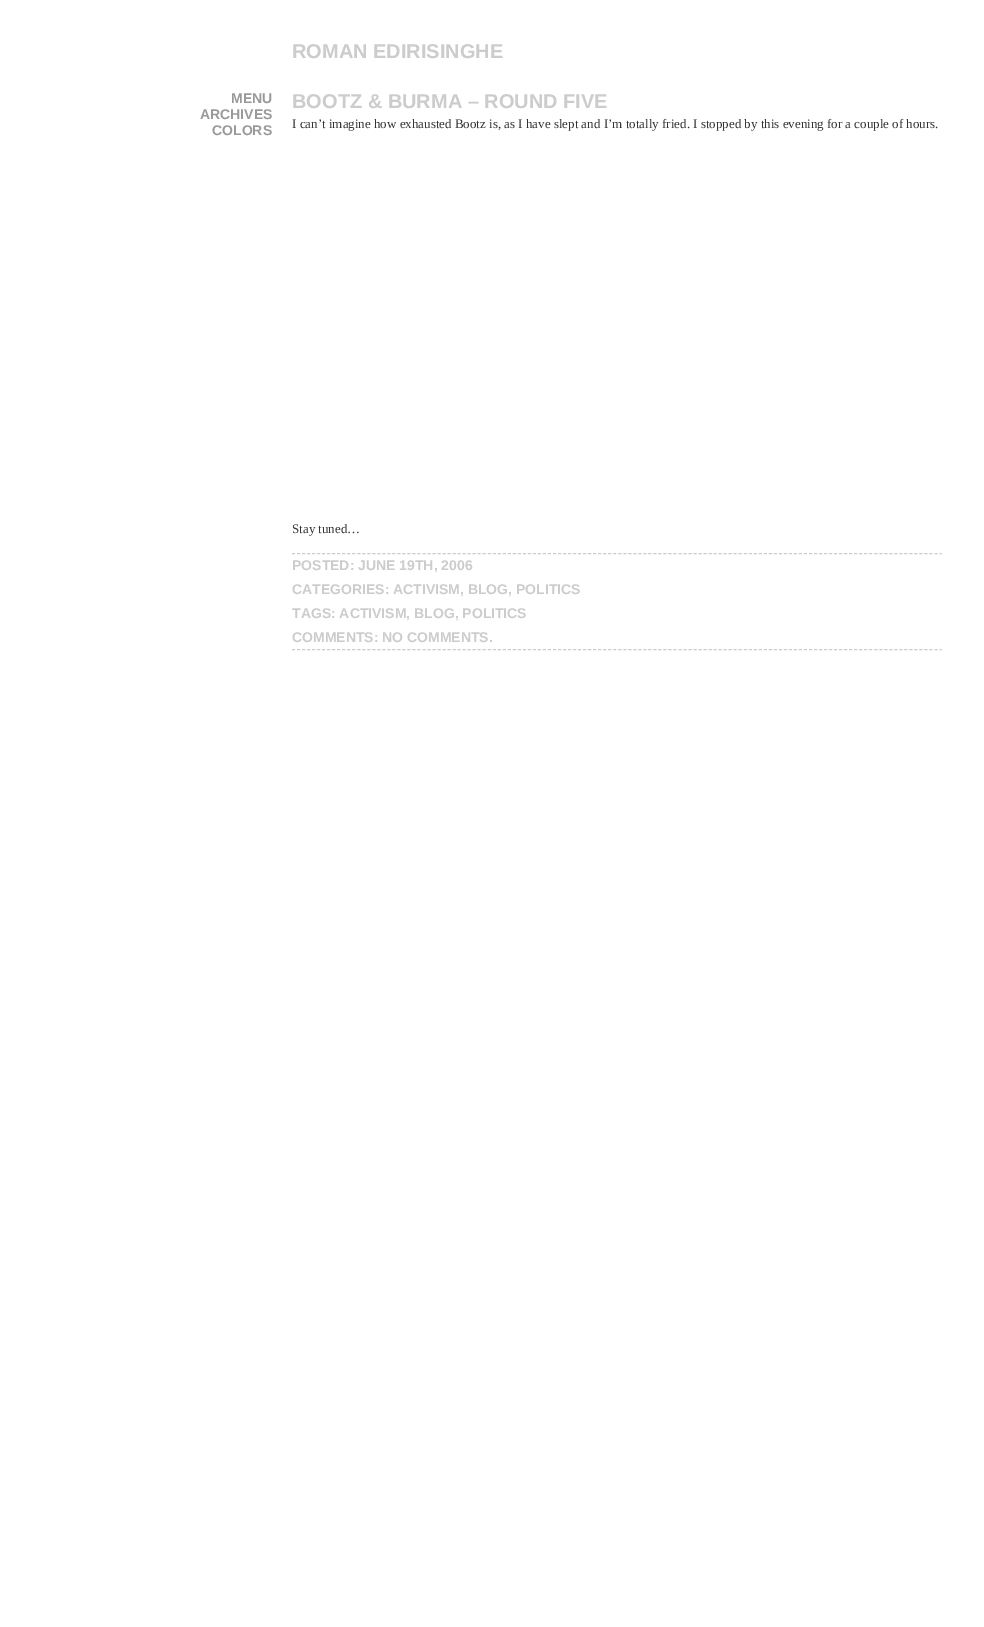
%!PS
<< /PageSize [984 1627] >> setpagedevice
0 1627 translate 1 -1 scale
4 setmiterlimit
1 setgray
0 0 984 1627 rectfill
/LiberationSans-Bold [20 0 0 -20 0 0] selectfont
0.8 setgray
292 58 moveto (ROMAN EDIRISINGHE) show
/LiberationSans-Bold [14 0 0 -14 0 0] selectfont
0.6 setgray
231 103 moveto (MENU) show
200 119 moveto (ARCHIVES) show
212 135 moveto (COLORS) show
/LiberationSans-Bold [20 0 0 -20 0 0] selectfont
0.8 setgray
292 108 moveto (BOOTZ & BURMA – ROUND FIVE) show
/LiberationSerif-Regular [13 0 0 -13 0 0] selectfont
0.2 setgray
292 128 moveto (I can’t imagine how exhausted Bootz is, as I have slept and I’m totally fried. I stopped by this evening for a couple of hours.) show
292 533 moveto (Stay tuned…) show
0.8 setgray
[3 2.02] 0 setdash
newpath 292 553.5 moveto 942 553.5 lineto stroke
newpath 292 649.5 moveto 942 649.5 lineto stroke
/LiberationSans-Bold [14 0 0 -14 0 0] selectfont
292 570 moveto (POSTED: JUNE 19TH, 2006) show
292 594 moveto (CATEGORIES: ACTIVISM, BLOG, POLITICS) show
292 618 moveto (TAGS: ACTIVISM, BLOG, POLITICS) show
292 642 moveto (COMMENTS: NO COMMENTS.) show
showpage
